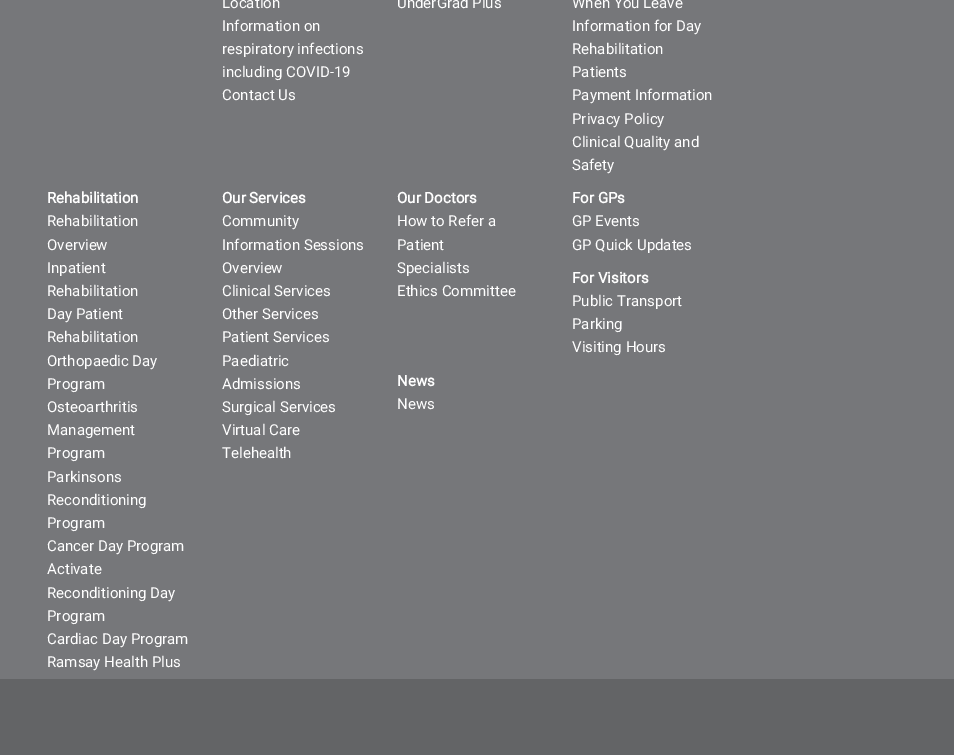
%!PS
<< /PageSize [954 755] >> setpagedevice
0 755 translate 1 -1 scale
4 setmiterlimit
0.463 0.467 0.478 setrgbcolor
0 0 954 755 rectfill
/Roboto-Regular [15 0 0 -15 0 0] selectfont
1 setgray
222 8 moveto (Location) show
222 31 moveto (Information on) show
222 54 moveto (respiratory infections) show
222 77 moveto (including COVID-19) show
222 100 moveto (Contact Us) show
397 8 moveto (UnderGrad Plus) show
572 8 moveto (When You Leave) show
572 31 moveto (Information for Day) show
572 54 moveto (Rehabilitation) show
572 77 moveto (Patients) show
572 100 moveto (Payment Information) show
572 124 moveto (Privacy Policy) show
572 147 moveto (Clinical Quality and) show
572 170 moveto (Safety) show
/Roboto-Bold [15 0 0 -15 0 0] selectfont
47 203 moveto (Rehabilitation) show
/Roboto-Regular [15 0 0 -15 0 0] selectfont
47 226 moveto (Rehabilitation) show
47 250 moveto (Overview) show
47 273 moveto (Inpatient) show
47 296 moveto (Rehabilitation) show
47 319 moveto (Day Patient) show
47 342 moveto (Rehabilitation) show
47 366 moveto (Orthopaedic Day) show
47 389 moveto (Program) show
47 412 moveto (Osteoarthritis) show
47 435 moveto (Management) show
47 458 moveto (Program) show
47 482 moveto (Parkinsons) show
47 505 moveto (Reconditioning) show
47 528 moveto (Program) show
47 551 moveto (Cancer Day Program) show
47 574 moveto (Activate) show
47 598 moveto (Reconditioning Day) show
47 621 moveto (Program) show
47 644 moveto (Cardiac Day Program) show
47 667 moveto (Ramsay Health Plus) show
/Roboto-Bold [15 0 0 -15 0 0] selectfont
222 203 moveto (Our Services) show
/Roboto-Regular [15 0 0 -15 0 0] selectfont
222 226 moveto (Community) show
222 250 moveto (Information Sessions) show
222 273 moveto (Overview) show
222 296 moveto (Clinical Services) show
222 319 moveto (Other Services) show
222 342 moveto (Patient Services) show
222 366 moveto (Paediatric) show
222 389 moveto (Admissions) show
222 412 moveto (Surgical Services) show
222 435 moveto (Virtual Care) show
222 458 moveto (Telehealth) show
/Roboto-Bold [15 0 0 -15 0 0] selectfont
397 203 moveto (Our Doctors) show
/Roboto-Regular [15 0 0 -15 0 0] selectfont
397 226 moveto (How to Refer a) show
397 250 moveto (Patient) show
397 273 moveto (Specialists) show
397 296 moveto (Ethics Committee) show
/Roboto-Bold [15 0 0 -15 0 0] selectfont
572 203 moveto (For GPs) show
/Roboto-Regular [15 0 0 -15 0 0] selectfont
572 226 moveto (GP Events) show
572 250 moveto (GP Quick Updates) show
/Roboto-Bold [15 0 0 -15 0 0] selectfont
572 283 moveto (For Visitors) show
/Roboto-Regular [15 0 0 -15 0 0] selectfont
572 306 moveto (Public Transport) show
572 329 moveto (Parking) show
572 352 moveto (Visiting Hours) show
/Roboto-Bold [15 0 0 -15 0 0] selectfont
397 386 moveto (News) show
/Roboto-Regular [15 0 0 -15 0 0] selectfont
397 409 moveto (News) show
0.388 0.392 0.4 setrgbcolor
0 679 954 76 rectfill
showpage
